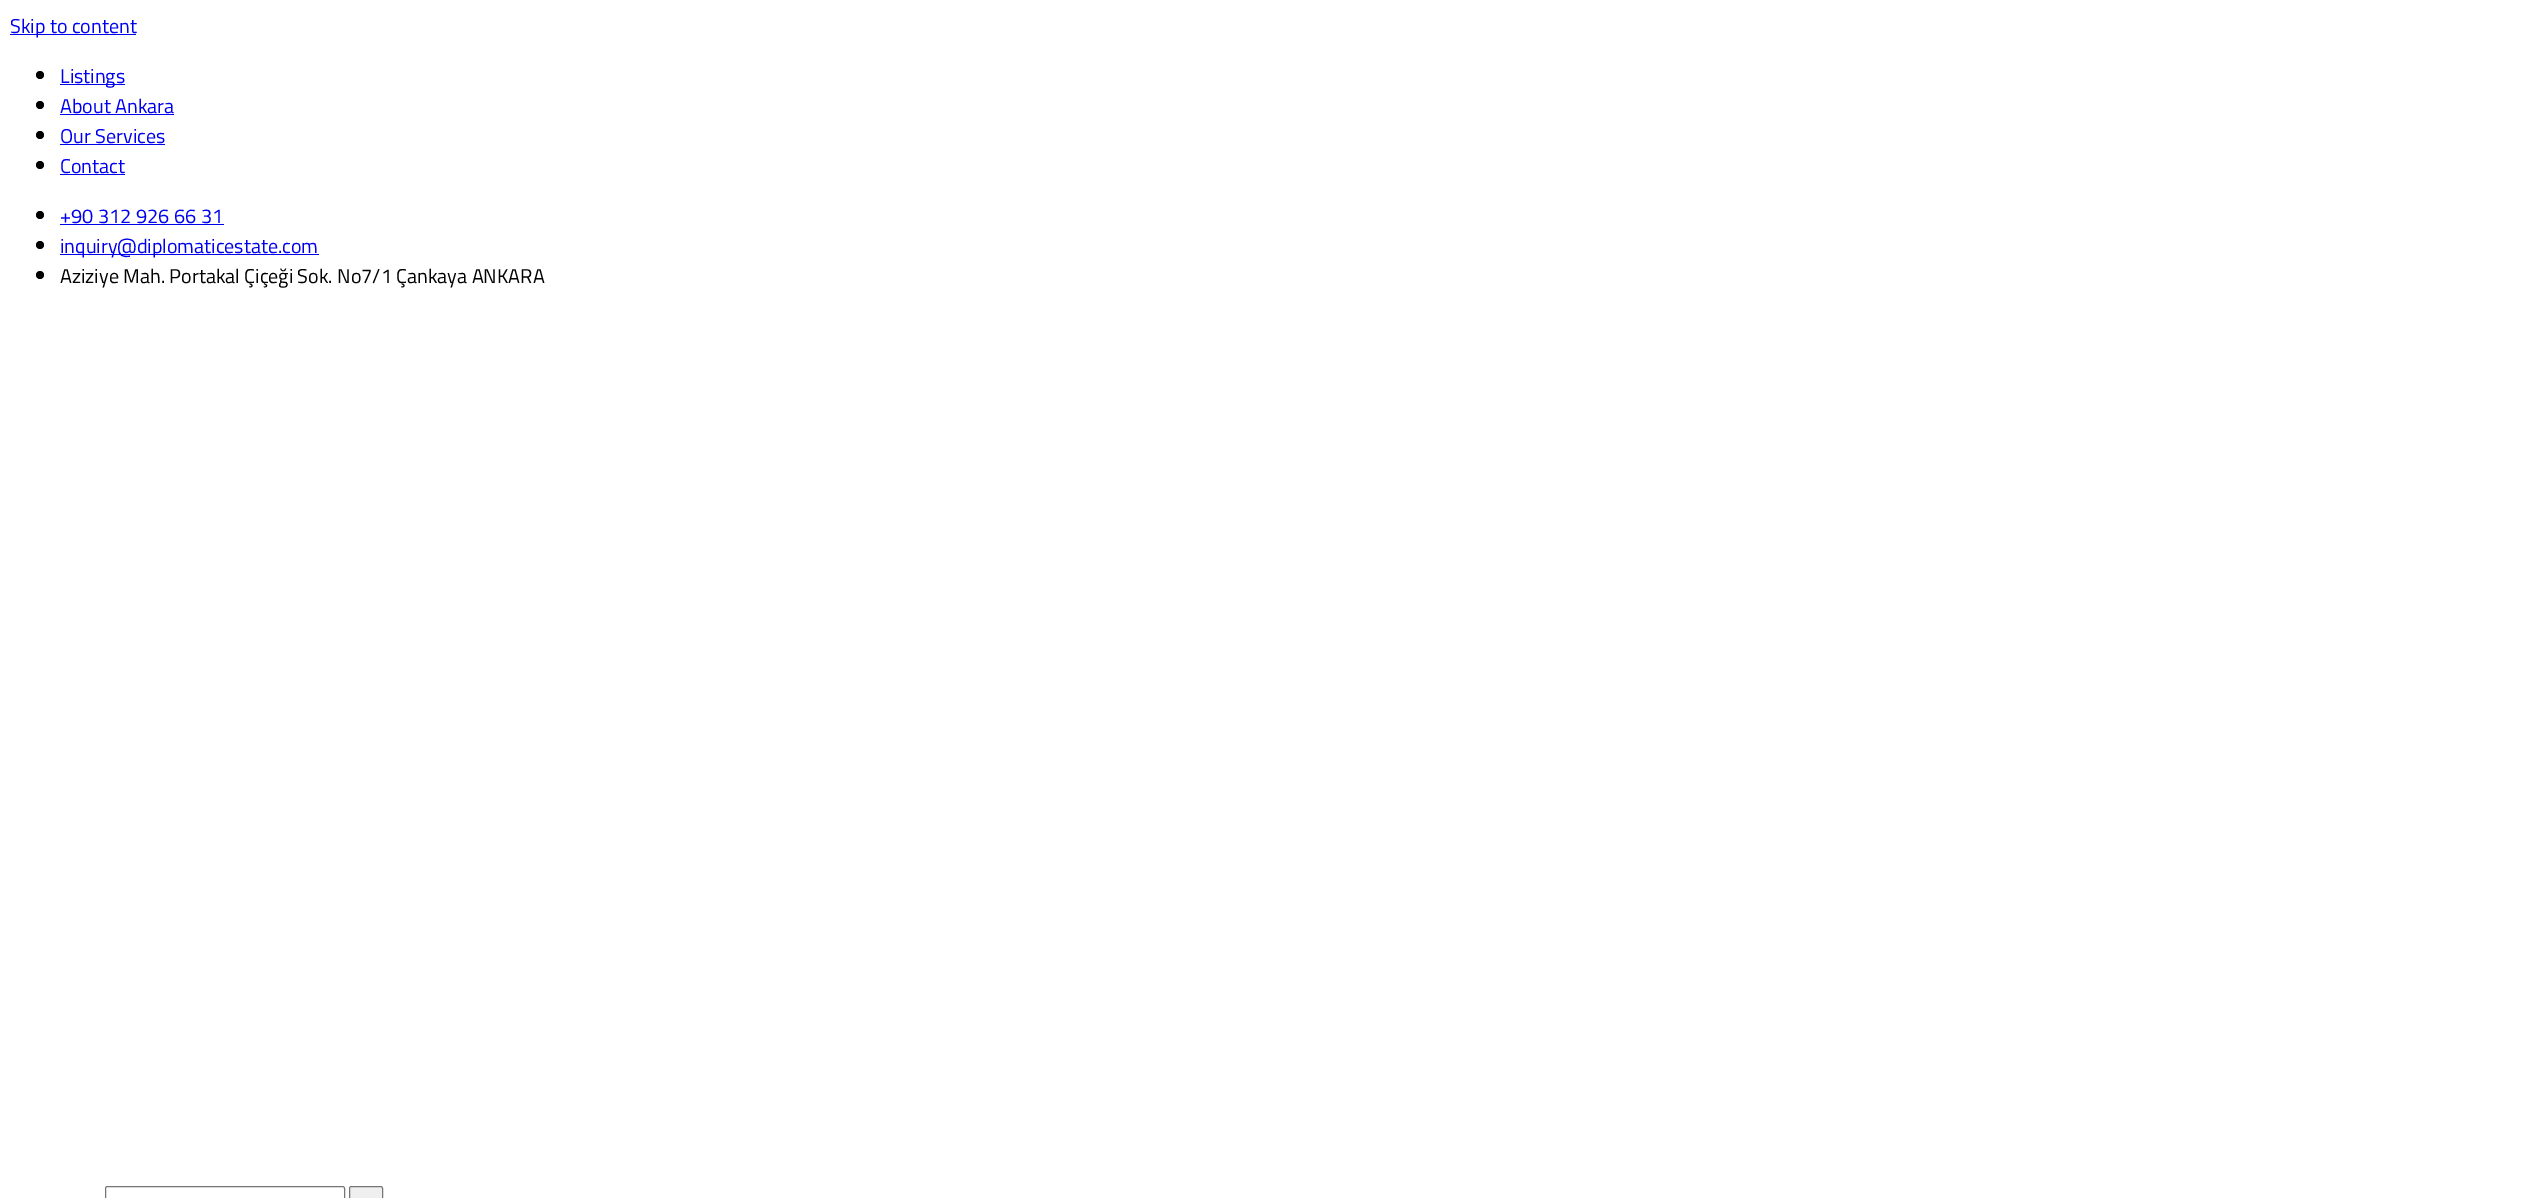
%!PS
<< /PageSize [2524 1198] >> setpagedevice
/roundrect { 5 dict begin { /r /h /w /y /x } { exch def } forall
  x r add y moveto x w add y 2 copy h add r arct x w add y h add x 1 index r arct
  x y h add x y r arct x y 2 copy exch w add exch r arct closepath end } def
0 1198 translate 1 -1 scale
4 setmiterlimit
1 setgray
0 0 2524 1198 rectfill
0 0 0.933 setrgbcolor
10 34 126 1 rectfill
/TitilliumWeb-Regular [20 0 0 -20 0 0] selectfont
10 33 moveto (Skip to content) show
0 setgray
newpath 40 75 4 0 360 arc closepath fill
0 0 0.933 setrgbcolor
60 84 65 1 rectfill
60 83 moveto (Listings) show
0 setgray
newpath 40 105 4 0 360 arc closepath fill
0 0 0.933 setrgbcolor
60 113 moveto (About Ankara) show
60 114 114 1 rectfill
0 setgray
newpath 40 135 4 0 360 arc closepath fill
0 0 0.933 setrgbcolor
60 143 moveto (Our Services) show
60 144 105 1 rectfill
0 setgray
newpath 40 165 4 0 360 arc closepath fill
0 0 0.933 setrgbcolor
60 173 moveto (Contact) show
60 174 65 1 rectfill
0 setgray
newpath 40 215 4 0 360 arc closepath fill
0 0 0.933 setrgbcolor
60 223 moveto (+90 312 926 66 31) show
60 224 164 1 rectfill
0 setgray
newpath 40 245 4 0 360 arc closepath fill
0 0 0.933 setrgbcolor
60 254 259 1 rectfill
60 253 moveto (inquiry@diplomaticestate.com) show
0 setgray
newpath 40 275 4 0 360 arc closepath fill
60 283 moveto (Aziziye Mah. Portakal Çiçeği Sok. No7/1 Çankaya ANKARA) show
0.463 setgray
105.5 1186.5 239 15 2 roundrect stroke
0.937 setgray
349.5 1186.5 33 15 2 roundrect gsave fill grestore
0.463 setgray
stroke
showpage
